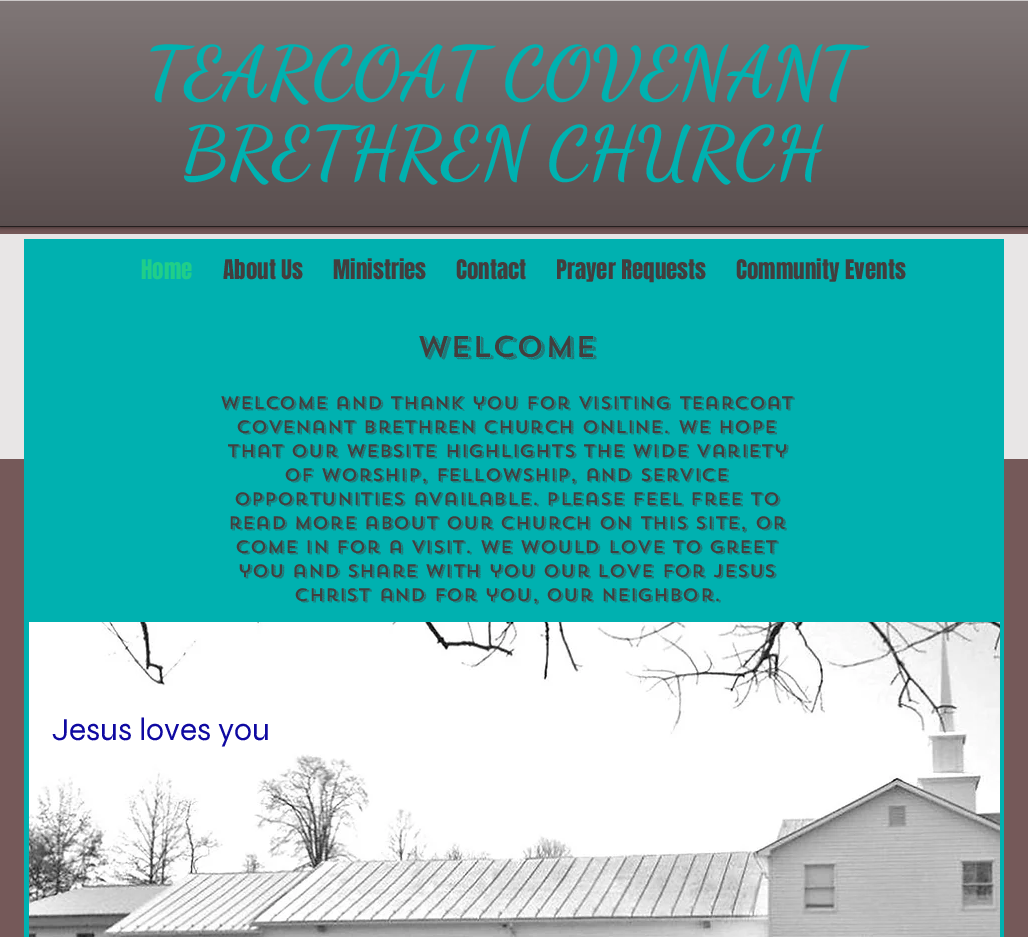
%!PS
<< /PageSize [1028 937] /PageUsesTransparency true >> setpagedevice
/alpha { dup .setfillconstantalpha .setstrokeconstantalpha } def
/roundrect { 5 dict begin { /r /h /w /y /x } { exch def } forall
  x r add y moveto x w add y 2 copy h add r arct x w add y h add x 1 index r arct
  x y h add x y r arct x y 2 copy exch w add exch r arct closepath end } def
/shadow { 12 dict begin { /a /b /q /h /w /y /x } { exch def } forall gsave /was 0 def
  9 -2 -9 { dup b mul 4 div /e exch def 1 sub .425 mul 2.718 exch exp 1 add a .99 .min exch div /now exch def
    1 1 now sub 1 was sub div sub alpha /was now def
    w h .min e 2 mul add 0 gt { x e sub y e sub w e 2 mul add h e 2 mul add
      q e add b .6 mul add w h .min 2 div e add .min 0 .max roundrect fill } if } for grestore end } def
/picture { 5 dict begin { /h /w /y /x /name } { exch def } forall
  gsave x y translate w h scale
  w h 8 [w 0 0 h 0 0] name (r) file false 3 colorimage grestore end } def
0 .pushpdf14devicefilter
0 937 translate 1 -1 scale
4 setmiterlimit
0.459 0.349 0.349 setrgbcolor
0 0 1028 937 rectfill
0 setgray
0 0 1028 227 0 2.5 0.6 shadow
0.325 0.278 0.278 setrgbcolor
0 1 1028 225 rectfill
(img1.rgb) 0 1 1028 225 picture
0.141 0.122 0.122 setrgbcolor
0 226 1028 1 rectfill
0.8 0.784 0.784 setrgbcolor
0 0 1028 1 rectfill
/DancingScript-Bold [72 0 0 -72 0 0] selectfont
0 0.694 0.69 setrgbcolor
145 96 moveto (TEARCOAT COVENANT) show
181 176 moveto (BRETHREN CHURCH) show
0.91 0.902 0.902 setrgbcolor
0 234 1028 225 rectfill
0 0.694 0.69 setrgbcolor
24 239 980 698 rectfill
/Anton-Regular [23 0 0 -23 0 0] selectfont
0.125 0.808 0.533 setrgbcolor
141 279 moveto (Home) show
0.259 0.243 0.243 setrgbcolor
223 279 moveto (About Us) show
333 279 moveto (Ministries) show
456 279 moveto (Contact) show
556 279 moveto (Prayer Requests) show
736 279 moveto (Community Events) show
/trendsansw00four-Medium [30 0 0 -30 0 0] selectfont
417 357 moveto (Welcome) show
/trendsansw00four-Medium [18 0 0 -18 0 0] selectfont
220 409 moveto (Welcome and thank you for visiting Tearcoat) show
236 433 moveto (Covenant Brethren Church online. We hope) show
227 457 moveto (that our website highlights the wide variety) show
284 481 moveto (of worship, fellowship, and service) show
234 505 moveto (opportunities available. Please feel free to) show
228 529 moveto (read more about our church on this site, or) show
235 553 moveto (come in for a visit. We would love to greet) show
238 577 moveto (you and share with you our love for Jesus) show
294 601 moveto (Christ and for you, our neighbor.) show
(img2.rgb) 29 622 971 315 picture
/Syne-Regular [32 0 0 -32 0 0] selectfont
0.059 0.035 0.631 setrgbcolor
52 740 moveto (Jesus loves you) show
.poppdf14devicefilter showpage
